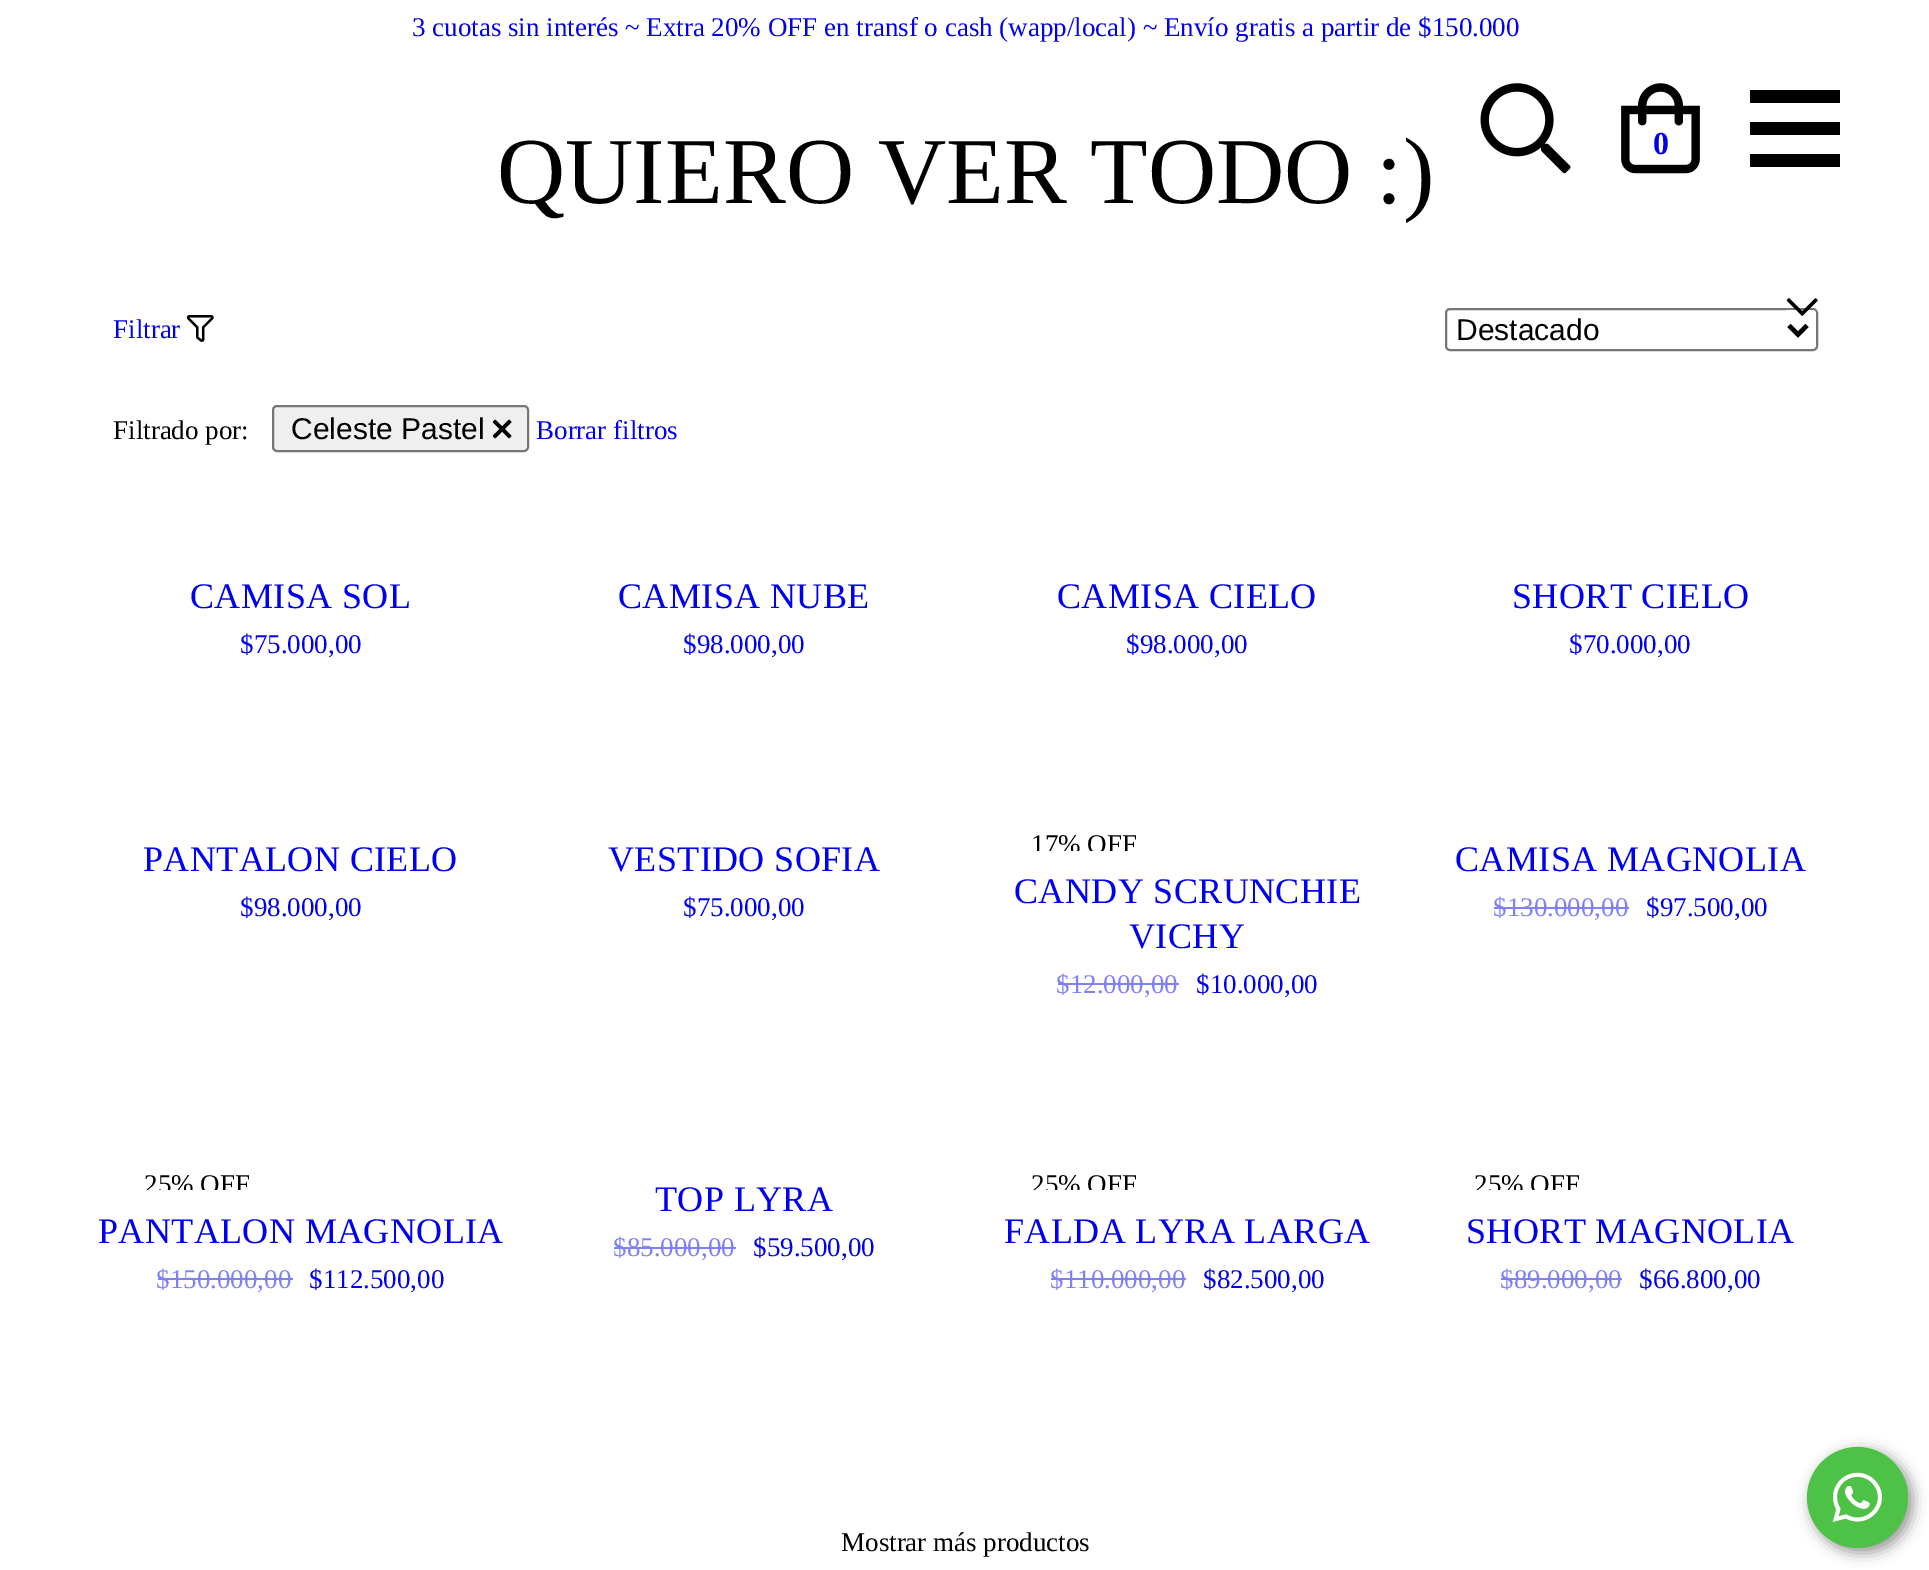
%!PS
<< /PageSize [1929 1570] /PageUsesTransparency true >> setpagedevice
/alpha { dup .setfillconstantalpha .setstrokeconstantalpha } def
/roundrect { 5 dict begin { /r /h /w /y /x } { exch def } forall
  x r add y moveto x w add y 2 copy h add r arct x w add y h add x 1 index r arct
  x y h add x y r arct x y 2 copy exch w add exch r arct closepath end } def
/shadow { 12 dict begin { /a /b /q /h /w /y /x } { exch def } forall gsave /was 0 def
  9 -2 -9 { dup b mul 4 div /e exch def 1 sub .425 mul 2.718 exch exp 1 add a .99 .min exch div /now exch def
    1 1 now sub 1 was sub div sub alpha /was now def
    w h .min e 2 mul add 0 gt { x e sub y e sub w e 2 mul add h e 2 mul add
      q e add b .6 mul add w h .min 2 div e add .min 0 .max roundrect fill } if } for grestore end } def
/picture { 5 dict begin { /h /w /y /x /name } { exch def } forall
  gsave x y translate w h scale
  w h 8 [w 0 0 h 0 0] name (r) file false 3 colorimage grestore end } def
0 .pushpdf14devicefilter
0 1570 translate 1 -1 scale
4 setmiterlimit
1 setgray
0 0 1929 1570 rectfill
/LiberationSerif-Regular [27 0 0 -27 0 0] selectfont
0 0 0.933 setrgbcolor
412 36 moveto (3 cuotas sin interés ~ Extra 20% OFF en transf o cash \(wapp/local\) ~ Envío gratis a partir de $150.000) show
(img1.rgb) 1480 83 91 91 picture
(img2.rgb) 1621 83 79 91 picture
/LiberationSerif-Bold [32 0 0 -32 0 0] selectfont
1653 154 moveto (0) show
0 setgray
1750 90 90 13 rectfill
1750 122 90 13 rectfill
1750 154 90 13 rectfill
/LiberationSerif-Regular [94.5 0 0 -94.5 0 0] selectfont
497 203 moveto (QUIERO VER TODO :\)) show
/LiberationSerif-Regular [27 0 0 -27 0 0] selectfont
0 0 0.933 setrgbcolor
113 338 moveto (Filtrar) show
(img3.rgb) 186 315 28 27 picture
0.463 setgray
2 setlinewidth
1446 309 371 41 4 roundrect stroke
(img4.rgb) 1786 298 32 18 picture
0 setgray
4.5 setlinewidth
newpath 1789 325.5 moveto 1798 334.5 lineto 1807 325.5 lineto stroke
/LiberationSans-Regular [30 0 0 -30 0 0] selectfont
1456 340 moveto (Destacado) show
/LiberationSerif-Regular [27 0 0 -27 0 0] selectfont
113 439 moveto (Filtrado por:) show
0.937 setgray
273 406 255 45 4 roundrect gsave fill grestore
0.463 setgray
2 setlinewidth
stroke
/LiberationSans-Regular [30 0 0 -30 0 0] selectfont
0 setgray
291 439 moveto (Celeste Pastel) show
(img5.rgb) 492 419 20 20 picture
/LiberationSerif-Regular [27 0 0 -27 0 0] selectfont
0 0 0.933 setrgbcolor
536 439 moveto (Borrar filtros) show
/LiberationSerif-Regular [36 0 0 -36 0 0] selectfont
190 608 moveto 0.4 0 (CAMISA SOL) ashow
/LiberationSerif-Regular [27 0 0 -27 0 0] selectfont
240 653 moveto ($75.000,00) show
/LiberationSerif-Regular [36 0 0 -36 0 0] selectfont
618 608 moveto 0.4 0 (CAMISA NUBE) ashow
/LiberationSerif-Regular [27 0 0 -27 0 0] selectfont
683 653 moveto ($98.000,00) show
/LiberationSerif-Regular [36 0 0 -36 0 0] selectfont
1057 608 moveto 0.4 0 (CAMISA CIELO) ashow
/LiberationSerif-Regular [27 0 0 -27 0 0] selectfont
1126 653 moveto ($98.000,00) show
/LiberationSerif-Regular [36 0 0 -36 0 0] selectfont
1512 608 moveto 0.4 0 (SHORT CIELO) ashow
/LiberationSerif-Regular [27 0 0 -27 0 0] selectfont
1569 653 moveto ($70.000,00) show
/LiberationSerif-Regular [36 0 0 -36 0 0] selectfont
143 871 moveto 0.4 0 (PANTALON CIELO) ashow
/LiberationSerif-Regular [27 0 0 -27 0 0] selectfont
240 916 moveto ($98.000,00) show
/LiberationSerif-Regular [36 0 0 -36 0 0] selectfont
608 871 moveto 0.4 0 (VESTIDO SOFIA) ashow
/LiberationSerif-Regular [27 0 0 -27 0 0] selectfont
683 916 moveto ($75.000,00) show
gsave
977 783 420 68 rectclip
0 setgray
1031 853 moveto (17% OFF) show
grestore
/LiberationSerif-Regular [36 0 0 -36 0 0] selectfont
1014 903 moveto 0.4 0 (CANDY SCRUNCHIE) ashow
1129 948 moveto 0.4 0 (VICHY) ashow
/LiberationSerif-Regular [27 0 0 -27 0 0] selectfont
0.502 0.502 0.969 setrgbcolor
1056 993 moveto ($12.000,00) show
1058 983 121 2 rectfill
0 0 0.933 setrgbcolor
1196 993 moveto ($10.000,00) show
/LiberationSerif-Regular [36 0 0 -36 0 0] selectfont
1455 871 moveto 0.4 0 (CAMISA MAGNOLIA) ashow
/LiberationSerif-Regular [27 0 0 -27 0 0] selectfont
0.502 0.502 0.969 setrgbcolor
1493 916 moveto ($130.000,00) show
1494 907 135 2 rectfill
0 0 0.933 setrgbcolor
1646 916 moveto ($97.500,00) show
gsave
90 1123 421 67 rectclip
0 setgray
144 1193 moveto (25% OFF) show
grestore
/LiberationSerif-Regular [36 0 0 -36 0 0] selectfont
98 1243 moveto 0.4 0 (PANTALON MAGNOLIA) ashow
/LiberationSerif-Regular [27 0 0 -27 0 0] selectfont
0.502 0.502 0.969 setrgbcolor
156 1288 moveto ($150.000,00) show
158 1278 135 2 rectfill
0 0 0.933 setrgbcolor
309 1288 moveto ($112.500,00) show
/LiberationSerif-Regular [36 0 0 -36 0 0] selectfont
655 1211 moveto 0.4 0 (TOP LYRA) ashow
/LiberationSerif-Regular [27 0 0 -27 0 0] selectfont
0.502 0.502 0.969 setrgbcolor
613 1256 moveto ($85.000,00) show
614 1247 122 2 rectfill
0 0 0.933 setrgbcolor
753 1256 moveto ($59.500,00) show
gsave
977 1123 420 67 rectclip
0 setgray
1031 1193 moveto (25% OFF) show
grestore
/LiberationSerif-Regular [36 0 0 -36 0 0] selectfont
1004 1243 moveto 0.4 0 (FALDA LYRA LARGA) ashow
/LiberationSerif-Regular [27 0 0 -27 0 0] selectfont
0.502 0.502 0.969 setrgbcolor
1050 1288 moveto ($110.000,00) show
1051 1278 135 2 rectfill
0 0 0.933 setrgbcolor
1203 1288 moveto ($82.500,00) show
gsave
1420 1123 421 67 rectclip
0 setgray
1474 1193 moveto (25% OFF) show
grestore
/LiberationSerif-Regular [36 0 0 -36 0 0] selectfont
1466 1243 moveto 0.4 0 (SHORT MAGNOLIA) ashow
/LiberationSerif-Regular [27 0 0 -27 0 0] selectfont
0.502 0.502 0.969 setrgbcolor
1500 1288 moveto ($89.000,00) show
1501 1278 121 2 rectfill
0 0 0.933 setrgbcolor
1639 1288 moveto ($66.800,00) show
0 setgray
841 1551 moveto (Mostrar más productos) show
1811 1451 102 102 51 7 0.4 shadow
0.302 0.761 0.278 setrgbcolor
newpath 1857.5 1497.5 50.5 0 360 arc closepath fill
(img6.rgb) 1832 1472 50 50 picture
.poppdf14devicefilter showpage
